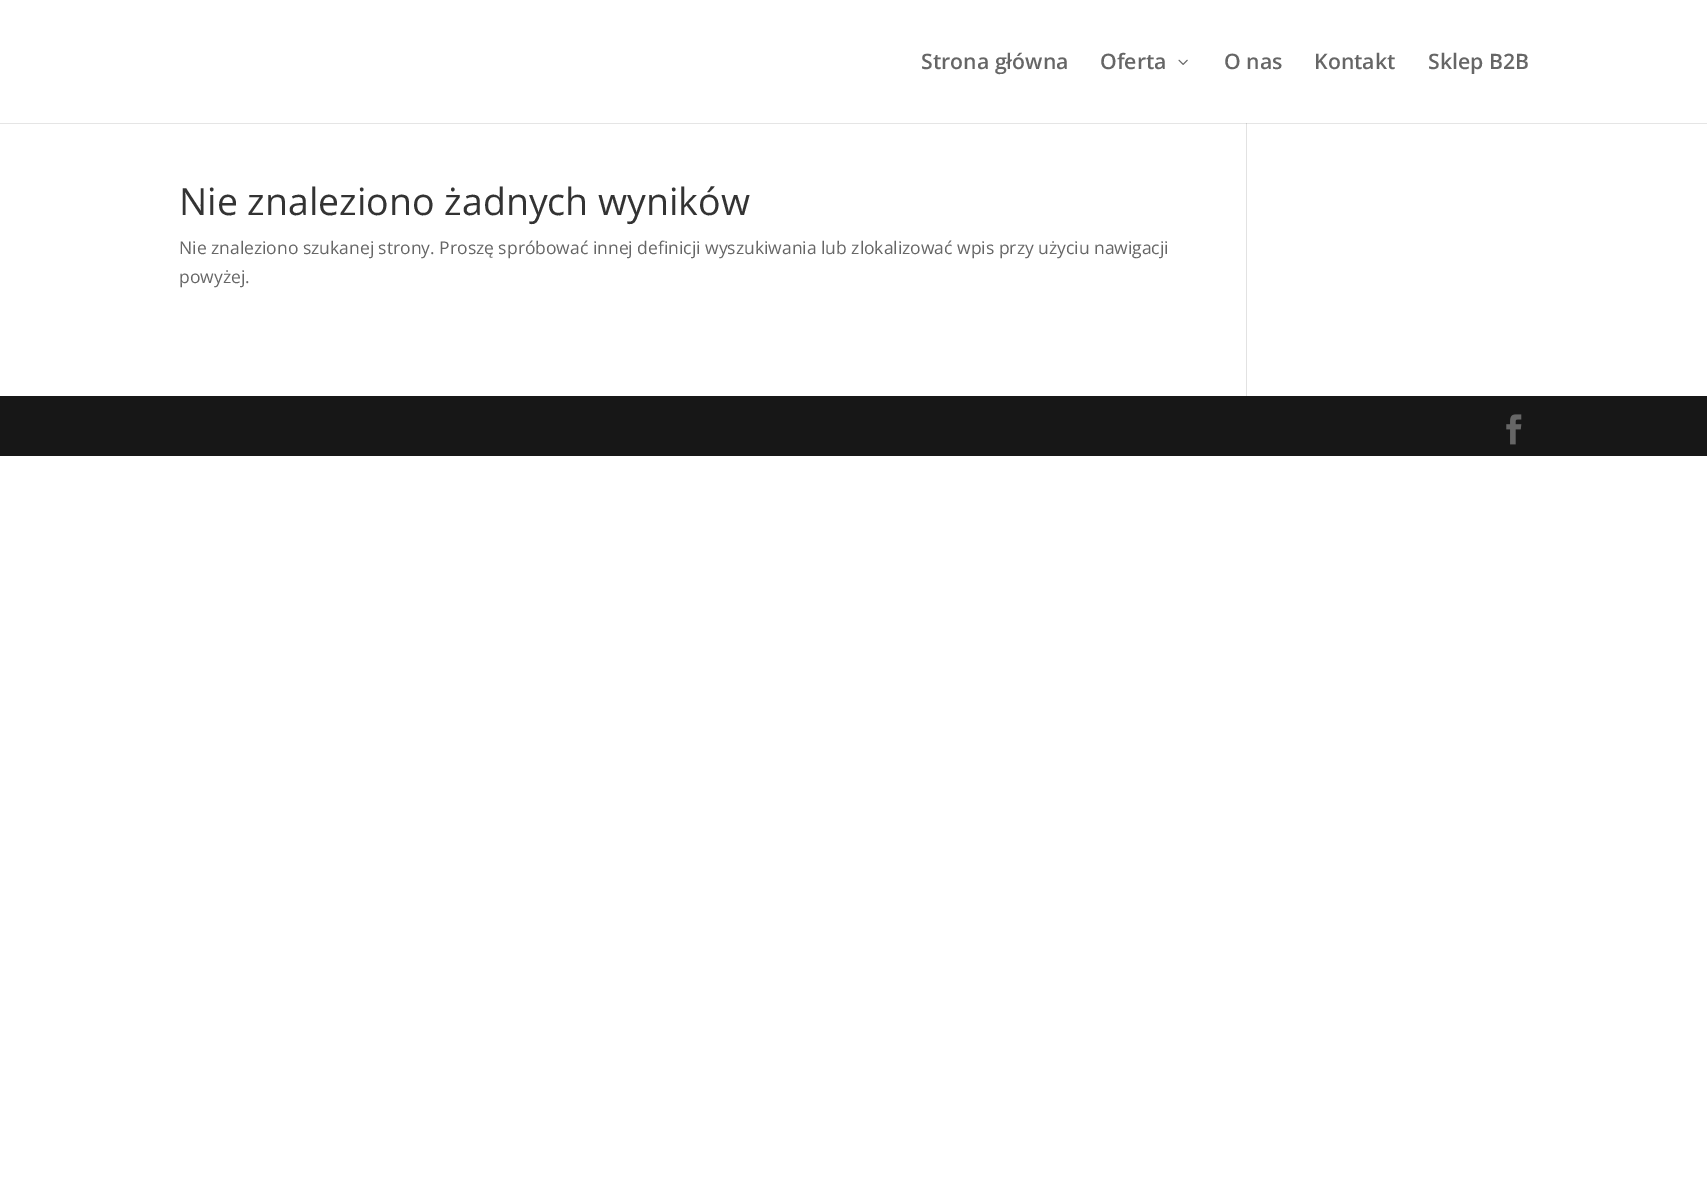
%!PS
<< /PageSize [1707 1203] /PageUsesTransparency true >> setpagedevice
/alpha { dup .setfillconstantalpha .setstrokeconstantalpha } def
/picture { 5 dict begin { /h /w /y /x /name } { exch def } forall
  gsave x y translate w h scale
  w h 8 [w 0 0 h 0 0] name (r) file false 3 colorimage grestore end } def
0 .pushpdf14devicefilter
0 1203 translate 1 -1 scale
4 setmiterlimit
1 setgray
0 0 1707 1203 rectfill
0.886 setgray
1246 123 1 273 rectfill
0.1 alpha
0 setgray
newpath 0 122 moveto 0 124 lineto 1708 124 lineto 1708 1 lineto 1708 122 lineto closepath fill
1 alpha
1 setgray
0 122 1707 1 rectfill
/OpenSans-SemiBold [21.25 0 0 -21.25 0 0] selectfont
0.4 setgray
921 69 moveto (Strona główna) show
1100 69 moveto (Oferta) show
(img1.rgb) 1178 59 10 6 picture
1224 69 moveto (O nas) show
1314 69 moveto (Kontakt) show
1428 69 moveto (Sklep B2B) show
/OpenSans-Regular [37.5 0 0 -37.5 0 0] selectfont
0.2 setgray
179 215 moveto (Nie znaleziono żadnych wyników) show
/OpenSans-Regular [17.5 0 0 -17.5 0 0] selectfont
0.4 setgray
179 254 moveto (Nie znaleziono szukanej strony. Proszę spróbować innej definicji wyszukiwania lub zlokalizować wpis przy użyciu nawigacji) show
179 283 moveto (powyżej.) show
0.09 setgray
0 396 1707 60 rectfill
(img2.rgb) 1506 414 16 31 picture
.poppdf14devicefilter showpage
